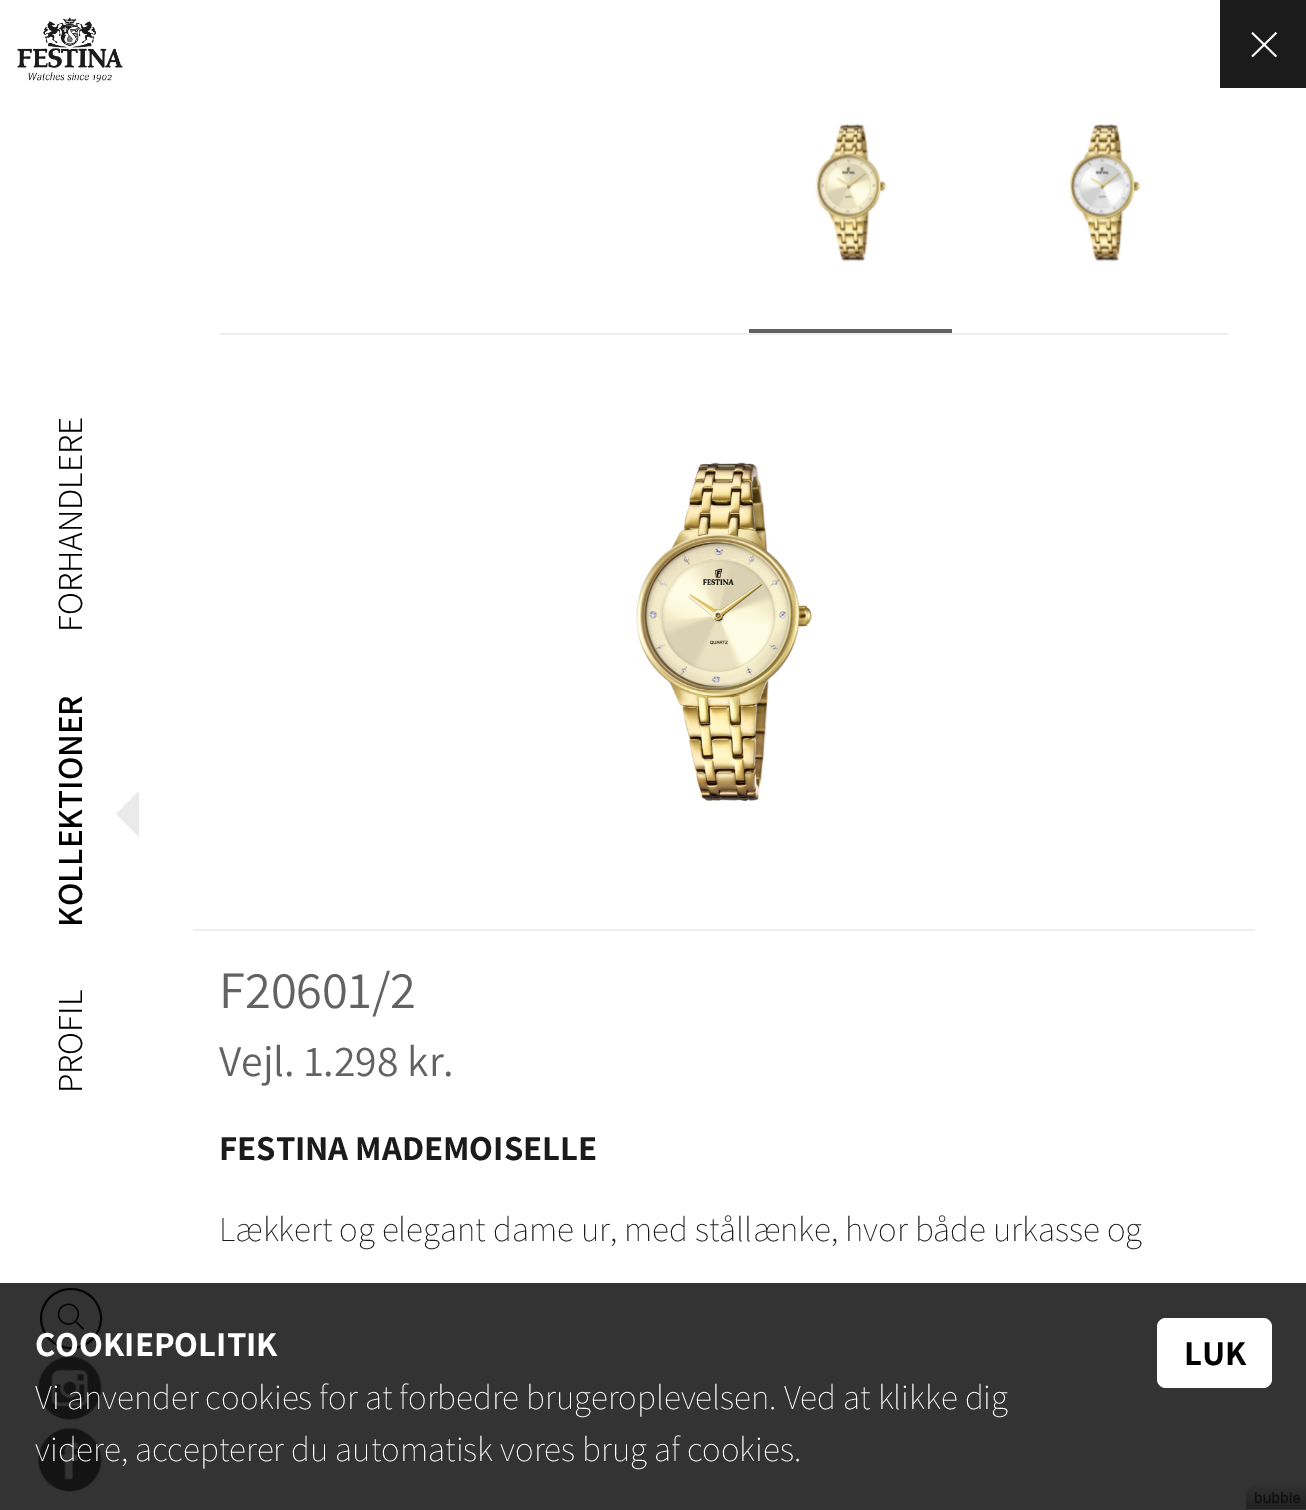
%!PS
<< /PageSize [1306 1510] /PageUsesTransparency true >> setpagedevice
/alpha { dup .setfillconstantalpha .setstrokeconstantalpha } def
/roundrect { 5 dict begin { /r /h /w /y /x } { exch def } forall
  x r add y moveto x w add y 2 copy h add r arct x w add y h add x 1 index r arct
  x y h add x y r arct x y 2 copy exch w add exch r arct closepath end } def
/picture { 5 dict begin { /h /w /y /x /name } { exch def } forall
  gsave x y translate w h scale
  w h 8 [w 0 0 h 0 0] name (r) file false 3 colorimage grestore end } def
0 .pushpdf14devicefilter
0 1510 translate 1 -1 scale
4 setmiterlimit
1 setgray
0 0 1306 1510 rectfill
(img1.rgb) 17 17 106 66 picture
/Assistant-Light [35 0 0 -35 0 0] selectfont
0 setgray
gsave 82 632 translate -90 rotate 0 0 moveto (FORHANDLERE) show grestore
/Assistant-SemiBold [35 0 0 -35 0 0] selectfont
gsave 82 927 translate -90 rotate 0 0 moveto (KOLLEKTIONER) show grestore
0.918 setgray
newpath 139 791 moveto 139 837 lineto 116 814 lineto closepath fill
/Assistant-Light [35 0 0 -35 0 0] selectfont
0 setgray
gsave 82 1093 translate -90 rotate 0 0 moveto (PROFIL) show grestore
0.106 setgray
2 setlinewidth
41 1289 60 59 29.5 roundrect stroke
(img2.rgb) 57 1303 27 27 picture
(img3.rgb) 38 1356 64 65 picture
(img4.rgb) 38 1427 64 65 picture
1220 0 86 88 rectfill
(img5.rgb) 1251 31 27 27 picture
0.933 setgray
219 333 1010 2 rectfill
(img6.rgb) 814 123 73 139 picture
0.384 setgray
749 329 203 4 rectfill
(img7.rgb) 1068 123 73 139 picture
0.933 setgray
193 929 1062 2 rectfill
(img8.rgb) 636 462 176 339 picture
/Assistant-Regular [52.5 0 0 -52.5 0 0] selectfont
0.384 setgray
219 1008 moveto (F20601/2) show
/Assistant-Regular [43.75 0 0 -43.75 0 0] selectfont
219 1076 moveto (Vejl. 1.298 kr.) show
/Assistant-Bold [35 0 0 -35 0 0] selectfont
0.106 setgray
219 1160 moveto (FESTINA MADEMOISELLE) show
/Assistant-ExtraLight [35 0 0 -35 0 0] selectfont
219 1241 moveto (Lækkert og elegant dame ur, med stållænke, hvor både urkasse og) show
(img9.rgb) 1246 1484 60 25 picture
0.8 alpha
0 setgray
0 1283 1306 227 rectfill
/Assistant-Bold [35 0 0 -35 0 0] selectfont
1 alpha
1 setgray
35 1356 moveto (COOKIEPOLITIK) show
1157 1318 115 70 9 roundrect fill
0 setgray
1184 1365 moveto (LUK) show
/Assistant-ExtraLight [35 0 0 -35 0 0] selectfont
1 setgray
35 1409 moveto (Vi anvender cookies for at forbedre brugeroplevelsen. Ved at klikke dig) show
35 1461 moveto (videre, accepterer du automatisk vores brug af cookies.) show
.poppdf14devicefilter showpage
